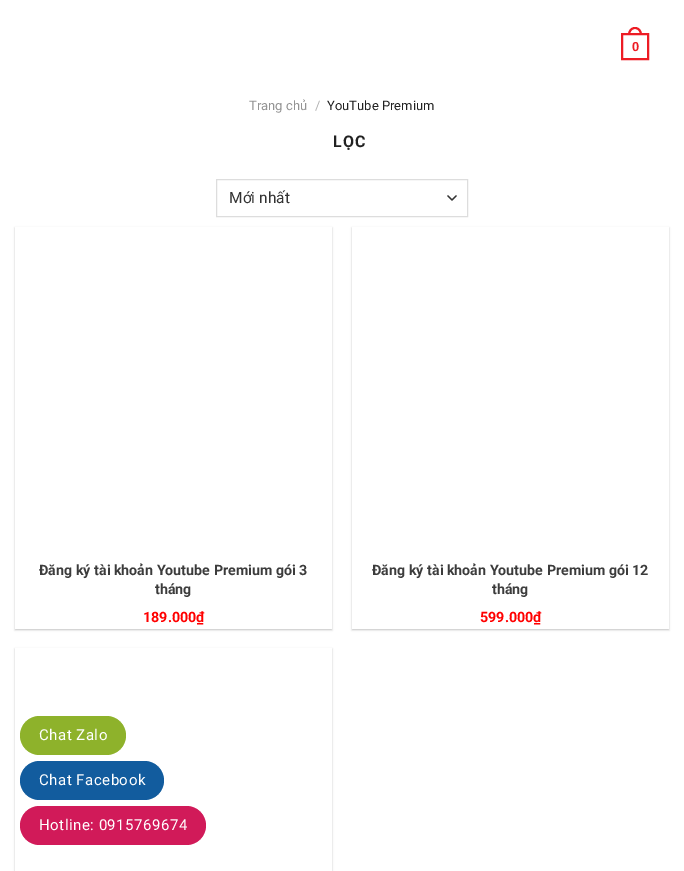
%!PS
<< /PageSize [684 871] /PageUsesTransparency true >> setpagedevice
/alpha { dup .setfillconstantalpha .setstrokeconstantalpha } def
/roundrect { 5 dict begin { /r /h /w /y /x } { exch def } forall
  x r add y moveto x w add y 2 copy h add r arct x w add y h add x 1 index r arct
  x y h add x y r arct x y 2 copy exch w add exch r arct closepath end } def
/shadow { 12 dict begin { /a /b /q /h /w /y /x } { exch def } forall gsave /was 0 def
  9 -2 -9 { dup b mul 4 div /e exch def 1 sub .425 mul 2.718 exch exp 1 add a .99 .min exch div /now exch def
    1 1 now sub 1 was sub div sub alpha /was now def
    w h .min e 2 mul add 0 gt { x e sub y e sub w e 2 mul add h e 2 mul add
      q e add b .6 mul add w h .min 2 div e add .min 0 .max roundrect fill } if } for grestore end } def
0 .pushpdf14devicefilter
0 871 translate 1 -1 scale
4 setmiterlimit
1 setgray
0 0 684 871 rectfill
0.929 0.11 0.141 setrgbcolor
2 setlinewidth
622 34 26 25 rectstroke
newpath 635 27 moveto 639.5 27 642 31 642 35 curveto 628 35 lineto 628 31 630.5 27 635 27 curveto closepath 635 29 moveto 638.5 29 640 32 640 35 curveto 630 35 lineto 630 32 631.5 29 635 29 curveto closepath eofill
/LiberationSans-Bold [13 0 0 -13 0 0] selectfont
632 51 moveto (0) show
/Roboto-Regular [13 0 0 -13 0 0] selectfont
0.58 setgray
249 110 moveto (Trang chủ) show
0.698 setgray
315 110 moveto (/) show
0.133 setgray
327 110 moveto (YouTube Premium) show
/Roboto-Bold [16 0 0 -16 0 0] selectfont
333 147 moveto 1 0 (LỌC) ashow
0.2 setgray
1.3 setlinewidth
1 setlinecap
1 setlinejoin
newpath 448 196 moveto 452 200 lineto 456 196 lineto stroke
0.867 setgray
1 setlinewidth
0 setlinecap
0 setlinejoin
216.5 179.5 251 37 rectstroke
/Roboto-Regular [15.5 0 0 -15.5 0 0] selectfont
0.2 setgray
229 203 moveto (Mới nhất) show
gsave
newpath 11 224 moveto 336 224 lineto 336 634 lineto 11 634 lineto closepath 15 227 moveto 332 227 lineto 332 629 lineto 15 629 lineto closepath eoclip newpath
0 setgray
15 228 317 402 0 1 0.24 shadow
grestore
/Roboto-Bold [14.25 0 0 -14.25 0 0] selectfont
0.235 setgray
39 575 moveto (Đăng ký tài khoản Youtube Premium gói 3) show
155 594 moveto (tháng) show
1 0 0 setrgbcolor
143 622 moveto (189.000₫) show
gsave
newpath 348 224 moveto 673 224 lineto 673 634 lineto 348 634 lineto closepath 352 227 moveto 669 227 lineto 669 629 lineto 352 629 lineto closepath eoclip newpath
0 setgray
352 228 317 402 0 1 0.24 shadow
grestore
0.235 setgray
372 575 moveto (Đăng ký tài khoản Youtube Premium gói 12) show
492 594 moveto (tháng) show
1 0 0 setrgbcolor
480 622 moveto (599.000₫) show
gsave
newpath 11 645 moveto 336 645 lineto 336 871 lineto 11 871 lineto closepath 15 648 moveto 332 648 lineto 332 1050 lineto 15 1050 lineto closepath eoclip newpath
0 setgray
15 649 317 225 0 1 0.24 shadow
grestore
0.557 0.698 0.169 setrgbcolor
20 716 106 39 19.5 roundrect fill
/Roboto-Regular [15 0 0 -15 0 0] selectfont
1 setgray
39 740 moveto 0.5 0 (Chat Zalo) ashow
0.071 0.361 0.62 setrgbcolor
20 761 144 39 19.5 roundrect fill
1 setgray
39 785 moveto 0.5 0 (Chat Facebook) ashow
0.82 0.102 0.349 setrgbcolor
20 806 186 39 19.5 roundrect fill
1 setgray
39 830 moveto 0.5 0 (Hotline: 0915769674) ashow
.poppdf14devicefilter showpage
